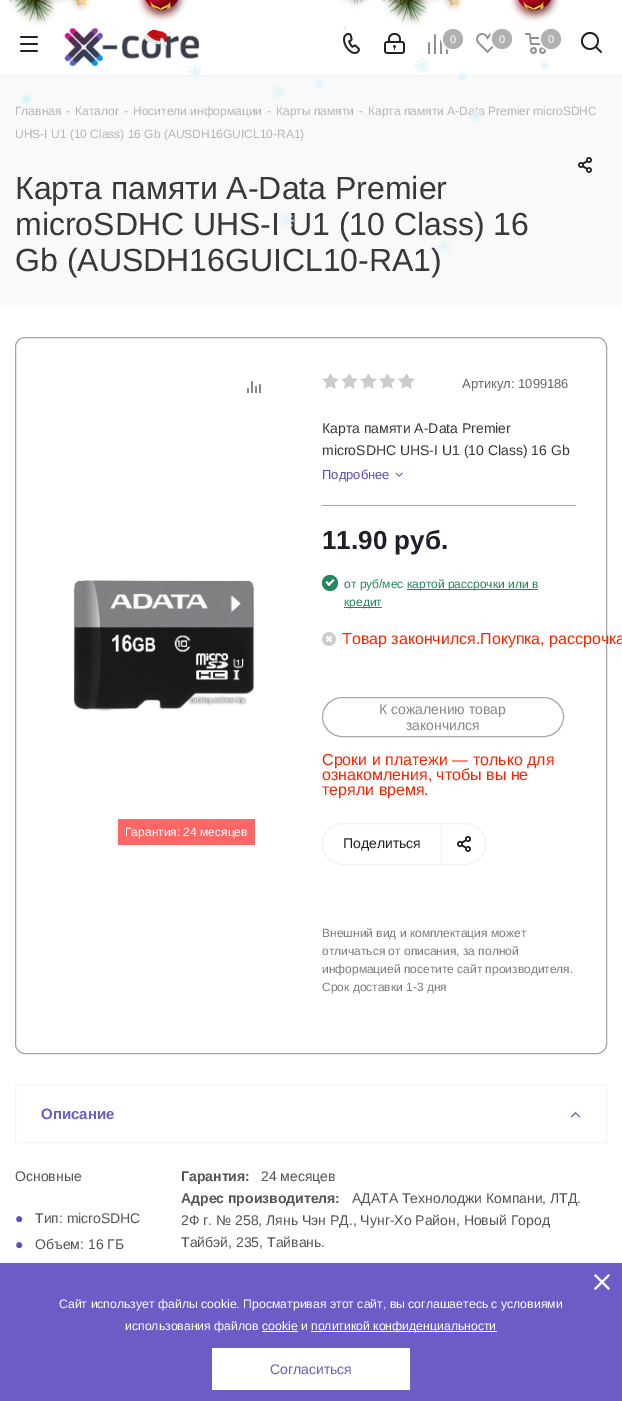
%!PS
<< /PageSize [622 1401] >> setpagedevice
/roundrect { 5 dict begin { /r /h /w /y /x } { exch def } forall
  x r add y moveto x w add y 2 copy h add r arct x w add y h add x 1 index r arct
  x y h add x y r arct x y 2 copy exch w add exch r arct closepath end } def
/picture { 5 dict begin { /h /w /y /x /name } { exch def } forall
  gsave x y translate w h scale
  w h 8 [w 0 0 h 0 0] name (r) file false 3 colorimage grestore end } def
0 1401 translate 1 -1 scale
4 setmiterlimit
1 setgray
0 0 622 1401 rectfill
(img6.rgb) 64 27 136 39 picture
(img9.rgb) 428 34 20 20 picture
2 setlinewidth
newpath 453 39 11 0 360 arc closepath stroke
(img1.rgb) 9 0 455 29 picture
(img2.rgb) 16 0 33 5 picture
(img3.rgb) 136 0 51 22 picture
(img2.rgb) 389 0 33 5 picture
(img4.rgb) 509 0 51 22 picture
0.961 setgray
0 75 622 1 rectfill
(img5.rgb) 20 36 18 16 picture
(img7.rgb) 343 33 17 21 picture
(img8.rgb) 384 33 21 21 picture
0.69 setgray
newpath 453 39 10 0 360 arc closepath fill
/LiberationSans-Regular [11 0 0 -11 0 0] selectfont
1 setgray
450 43 moveto (0) show
(img10.rgb) 476 33 19 20 picture
newpath 502 39 11 0 360 arc closepath stroke
0.69 setgray
newpath 502 39 10 0 360 arc closepath fill
1 setgray
499 43 moveto (0) show
(img11.rgb) 525 33 21 21 picture
newpath 551 39 11 0 360 arc closepath stroke
0.69 setgray
newpath 551 39 10 0 360 arc closepath fill
1 setgray
548 43 moveto (0) show
(img12.rgb) 581 32 21 21 picture
0.976 setgray
0 76 622 231 rectfill
/LiberationSans-Regular [12 0 0 -12 0 0] selectfont
0.714 0.71 0.71 setrgbcolor
15 115 moveto (Главная) show
66 115 moveto (-) show
75 115 moveto (Каталог) show
124 115 moveto (-) show
133 115 moveto (Носители информации) show
267 115 moveto (-) show
276 115 moveto (Карты памяти) show
359 115 moveto (-) show
368 115 moveto (Карта памяти A-Data Premier microSDHC) show
15 138 moveto (UHS-I U1 \(10 Class\) 16 Gb \(AUSDH16GUICL10-RA1\)) show
(img13.rgb) 578 157 14 16 picture
/LiberationSans-Regular [32 0 0 -32 0 0] selectfont
0.22 setgray
15 199 moveto (Карта памяти A-Data Premier) show
15 235 moveto (microSDHC UHS-I U1 \(10 Class\) 16) show
15 271 moveto (Gb \(AUSDH16GUICL10-RA1\)) show
0.647 setgray
1 setlinewidth
15.5 337.5 591 716 9.5 roundrect stroke
(img14.rgb) 247 381 14 12 picture
(img15.rgb) 73 580 182 131 picture
1 0.4 0.4 setrgbcolor
118 819 137 26 rectfill
/LiberationSans-Regular [12 0 0 -12 0 0] selectfont
1 setgray
125 836 moveto (Гарантия: 24 месяцев) show
0.647 setgray
322 505 254 1 rectfill
(img16.rgb) 322 374 17 15 picture
(img16.rgb) 341 374 17 15 picture
(img16.rgb) 360 374 17 15 picture
(img16.rgb) 379 374 17 15 picture
(img16.rgb) 398 374 17 15 picture
/LiberationSans-Regular [13 0 0 -13 0 0] selectfont
0.4 setgray
462 388 moveto (Артикул: 1099186) show
/LiberationSans-Regular [14 0 0 -14 0 0] selectfont
0.22 setgray
322 433 moveto (Карта памяти A-Data Premier) show
322 455 moveto (microSDHC UHS-I U1 \(10 Class\) 16 Gb) show
/LiberationSans-Regular [13 0 0 -13 0 0] selectfont
0.353 0.282 0.757 setrgbcolor
322 479 moveto (Подробнее) show
(img17.rgb) 395 472 8 5 picture
/LiberationSans-Bold [26 0 0 -26 0 0] selectfont
0.114 0.125 0.161 setrgbcolor
322 549 moveto (11.90 руб.) show
0.149 0.533 0.353 setrgbcolor
newpath 330 583 8 0 360 arc closepath fill
1 setgray
newpath 327.5 584.5 moveto 333 579 lineto 334.5 580.5 lineto 329 586 lineto closepath fill
newpath 325.5 582.5 moveto 327 581 lineto 330.5 584.5 lineto 329 586 lineto closepath fill
/LiberationSans-Regular [12 0 0 -12 0 0] selectfont
0.149 0.533 0.353 setrgbcolor
344 588 moveto (от руб/мес) show
407 589 131 1 rectfill
407 588 moveto (картой рассрочки или в) show
344 607 38 1 rectfill
344 606 moveto (кредит) show
(img18.rgb) 322 632 14 14 picture
/LiberationSans-Regular [16 0 0 -16 0 0] selectfont
1 0.141 0 setrgbcolor
342 644 moveto (Товар закончился.Покупка, рассрочка) show
0.667 setgray
322.5 697.5 241 39 19.5 roundrect stroke
/LiberationSans-Regular [14 0 0 -14 0 0] selectfont
0.533 setgray
379 714 moveto (К сожалению товар) show
406 730 moveto (закончился) show
/LiberationSans-Regular [16 0 0 -16 0 0] selectfont
1 0.141 0 setrgbcolor
322 765 moveto (Сроки и платежи — только для) show
322 780 moveto (ознакомления, чтобы вы не) show
322 795 moveto (теряли время.) show
0.949 setgray
441 823 1 42 rectfill
(img19.rgb) 457 836 14 16 picture
322.5 823.5 163 41 20.5 roundrect stroke
/LiberationSans-Regular [14 0 0 -14 0 0] selectfont
0.133 setgray
343 848 moveto (Поделиться) show
/LiberationSans-Regular [12 0 0 -12 0 0] selectfont
0.49 setgray
322 937 moveto (Внешний вид и комплектация может) show
322 955 moveto (отличаться от описания, за полной) show
322 973 moveto (информацией посетите сайт производителя.) show
322 991 moveto (Срок доставки 1-3 дня) show
0.961 setgray
15.5 1084.5 591 58 rectstroke
/LiberationSans-Bold [15 0 0 -15 0 0] selectfont
0.424 0.361 0.776 setrgbcolor
41 1119 moveto (Описание) show
(img20.rgb) 570 1112 11 6 picture
/LiberationSans-Regular [14 0 0 -14 0 0] selectfont
0.333 setgray
15 1181 moveto (Основные) show
0.349 0.31 0.765 setrgbcolor
15 1223 moveto (●) show
0.333 setgray
35 1223 moveto (Тип: microSDHC) show
0.349 0.31 0.765 setrgbcolor
15 1249 moveto (●) show
0.333 setgray
35 1249 moveto (Объем: 16 ГБ) show
/LiberationSans-Bold [14 0 0 -14 0 0] selectfont
181 1181 moveto (Гарантия:) show
/LiberationSans-Regular [14 0 0 -14 0 0] selectfont
261 1181 moveto (24 месяцев) show
/LiberationSans-Bold [14 0 0 -14 0 0] selectfont
181 1203 moveto (Адрес производителя:) show
/LiberationSans-Regular [14 0 0 -14 0 0] selectfont
352 1203 moveto (АДАТА Технолоджи Компани, ЛТД.) show
181 1225 moveto (2Ф г. № 258, Лянь Чэн РД., Чунг-Хо Район, Новый Город) show
181 1247 moveto (Тайбэй, 235, Тайвань.) show
0.424 0.361 0.776 setrgbcolor
0 1263 622 138 rectfill
1 setgray
newpath 595.5 1274 moveto 610 1288.5 lineto 608.5 1290 lineto 594 1275.5 lineto closepath fill
newpath 594 1288.5 moveto 608.5 1274 lineto 610 1275.5 lineto 595.5 1290 lineto closepath fill
/LiberationSans-Regular [12.25 0 0 -12.25 0 0] selectfont
59 1308 moveto (Сайт использует файлы cookie. Просматривая этот сайт, вы соглашаетесь с условиями) show
125 1330 moveto (использования файлов cookie и) show
311 1331 186 1 rectfill
311 1330 moveto (политикой конфиденциальности) show
262 1331 36 1 rectfill
212 1348 198 42 rectfill
/LiberationSans-Regular [14 0 0 -14 0 0] selectfont
0.424 0.361 0.776 setrgbcolor
270 1374 moveto (Согласиться) show
(img21.rgb) 187 64 15 15 picture
(img22.rgb) 414 58 15 15 picture
(img23.rgb) 457 71 10 11 picture
(img24.rgb) 540 60 10 11 picture
(img25.rgb) 314 78 11 10 picture
(img26.rgb) 21 94 11 10 picture
(img27.rgb) 271 84 15 15 picture
(img28.rgb) 469 109 15 15 picture
(img29.rgb) 279 213 15 15 picture
(img30.rgb) 437 239 15 15 picture
showpage
